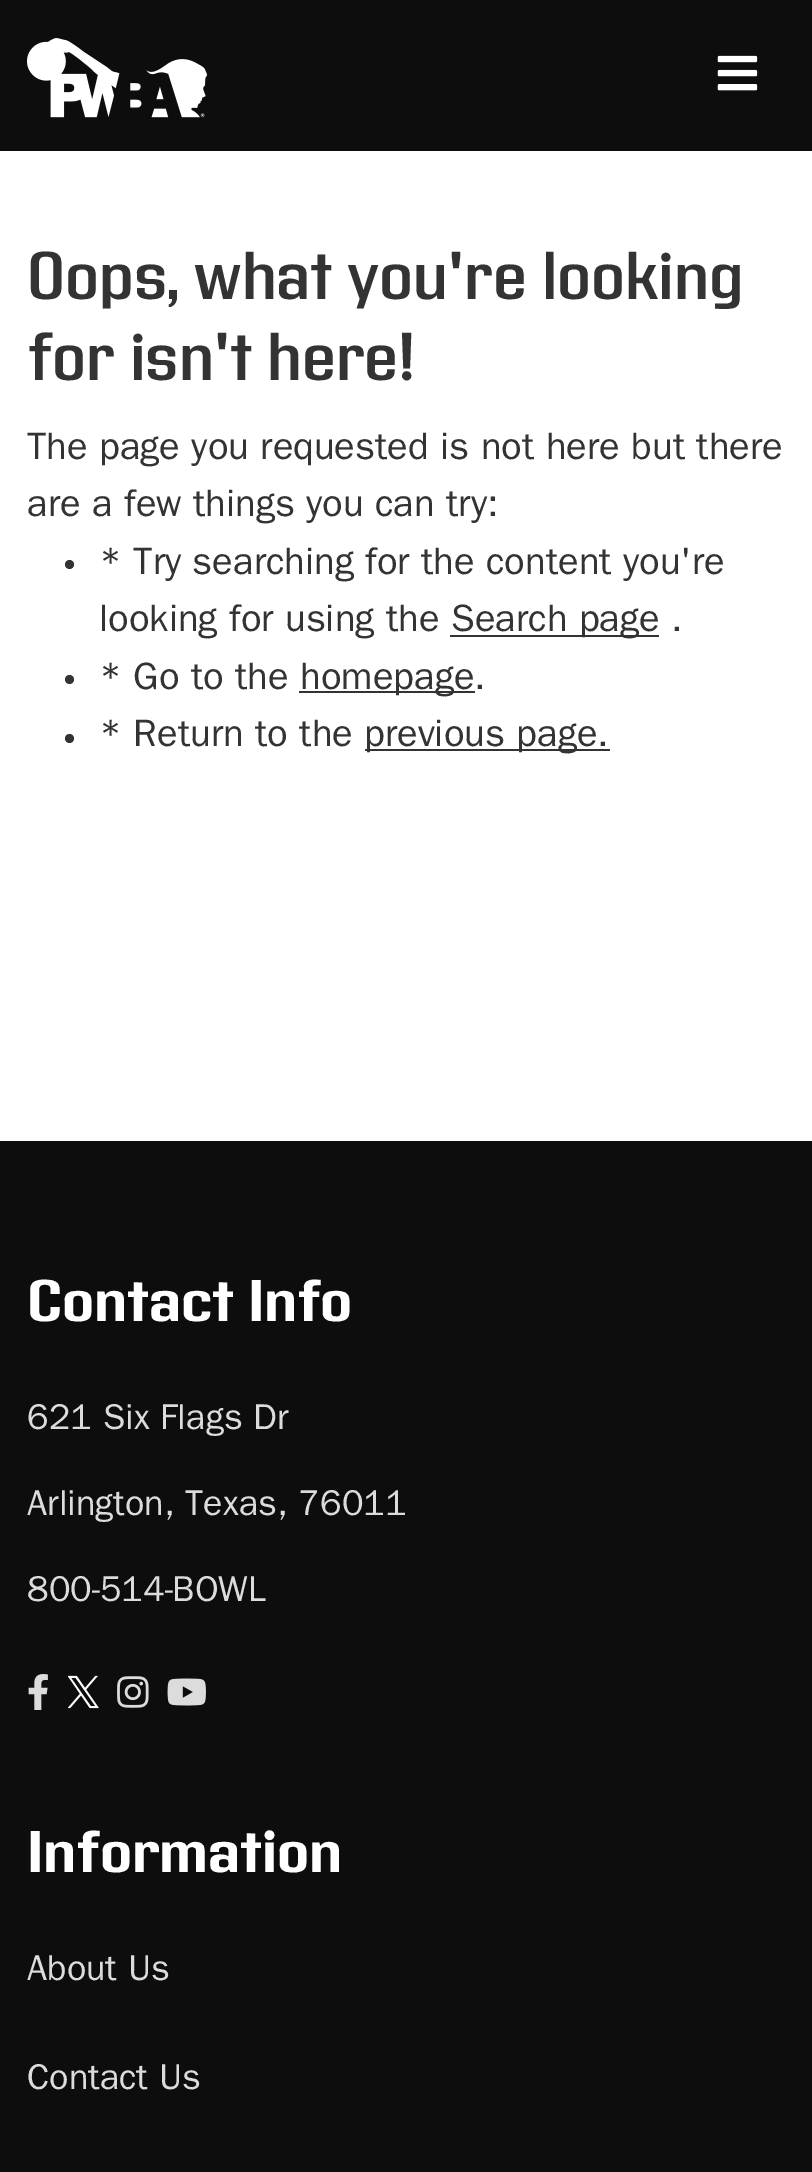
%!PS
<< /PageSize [812 2172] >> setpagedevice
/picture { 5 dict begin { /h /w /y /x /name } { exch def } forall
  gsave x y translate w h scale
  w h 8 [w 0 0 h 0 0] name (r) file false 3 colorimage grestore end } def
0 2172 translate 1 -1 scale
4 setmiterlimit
1 setgray
0 0 812 2172 rectfill
0.051 setgray
0 0 812 151 rectfill
(img1.rgb) 27 38 180 80 picture
(img2.rgb) 717 55 41 36 picture
/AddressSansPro-SemiBold [67.5 0 0 -67.5 0 0] selectfont
0.2 setgray
27 299 moveto (Oops, what you're looking) show
27 380 moveto (for isn't here!) show
/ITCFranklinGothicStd-Regular [38.25 0 0 -38.25 0 0] selectfont
27 459 moveto (The page you requested is not here but there) show
27 516 moveto (are a few things you can try:) show
newpath 69.5 564.5 4.5 0 360 arc closepath fill
99 574 moveto (* Try searching for the content you're) show
99 631 moveto (looking for using the) show
450 635 209 2 rectfill
451 631 moveto (Search page .) show
newpath 69.5 679.5 4.5 0 360 arc closepath fill
99 689 moveto (* Go to the) show
299 691 176 2 rectfill
300 689 moveto (homepage.) show
newpath 69.5 738.5 4.5 0 360 arc closepath fill
99 746 moveto (* Return to the) show
365 749 245 2 rectfill
364 746 moveto (previous page.) show
0.051 setgray
0 1141 812 1031 rectfill
/AddressSansPro-Bold [58.5 0 0 -58.5 0 0] selectfont
1 setgray
27 1321 moveto (Contact Info) show
/ITCFranklinGothicStd-Regular [36 0 0 -36 0 0] selectfont
0.863 setgray
27 1429 moveto (621 Six Flags Dr) show
27 1515 moveto (Arlington, Texas, 76011) show
27 1601 moveto (800-514-BOWL) show
(img3.rgb) 28 1674 20 36 picture
(img4.rgb) 68 1675 31 34 picture
(img5.rgb) 117 1676 32 32 picture
(img6.rgb) 167 1678 39 28 picture
/AddressSansPro-Bold [58.5 0 0 -58.5 0 0] selectfont
1 setgray
27 1872 moveto (Information) show
/ITCFranklinGothicStd-Regular [36 0 0 -36 0 0] selectfont
0.863 setgray
27 1980 moveto (About Us) show
27 2089 moveto (Contact Us) show
showpage
